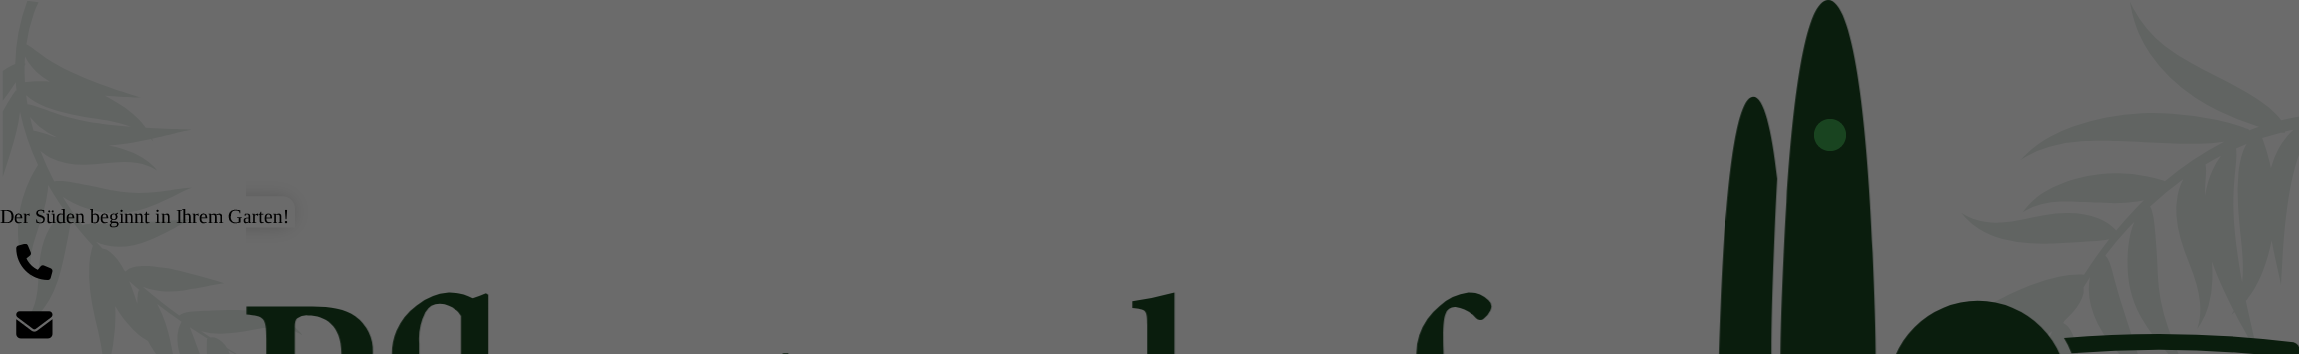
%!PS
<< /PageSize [2299 354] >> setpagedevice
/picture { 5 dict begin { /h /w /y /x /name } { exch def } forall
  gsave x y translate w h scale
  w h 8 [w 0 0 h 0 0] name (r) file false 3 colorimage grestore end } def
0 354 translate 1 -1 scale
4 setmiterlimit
0.42 setgray
0 0 2299 354 rectfill
(img1.rgb) 2 1 300 353 picture
(img3.rgb) 1962 2 337 352 picture
/LiberationSerif-Regular [20 0 0 -20 0 0] selectfont
0 setgray
0 223 moveto (Der Süden beginnt in Ihrem Garten!) show
(img2.rgb) 246 0 2053 354 picture
0.098 0.267 0.125 setrgbcolor
newpath 1830 135 16 0 360 arc closepath fill
(img4.rgb) 16 244 37 36 picture
(img5.rgb) 16 311 37 28 picture
showpage
